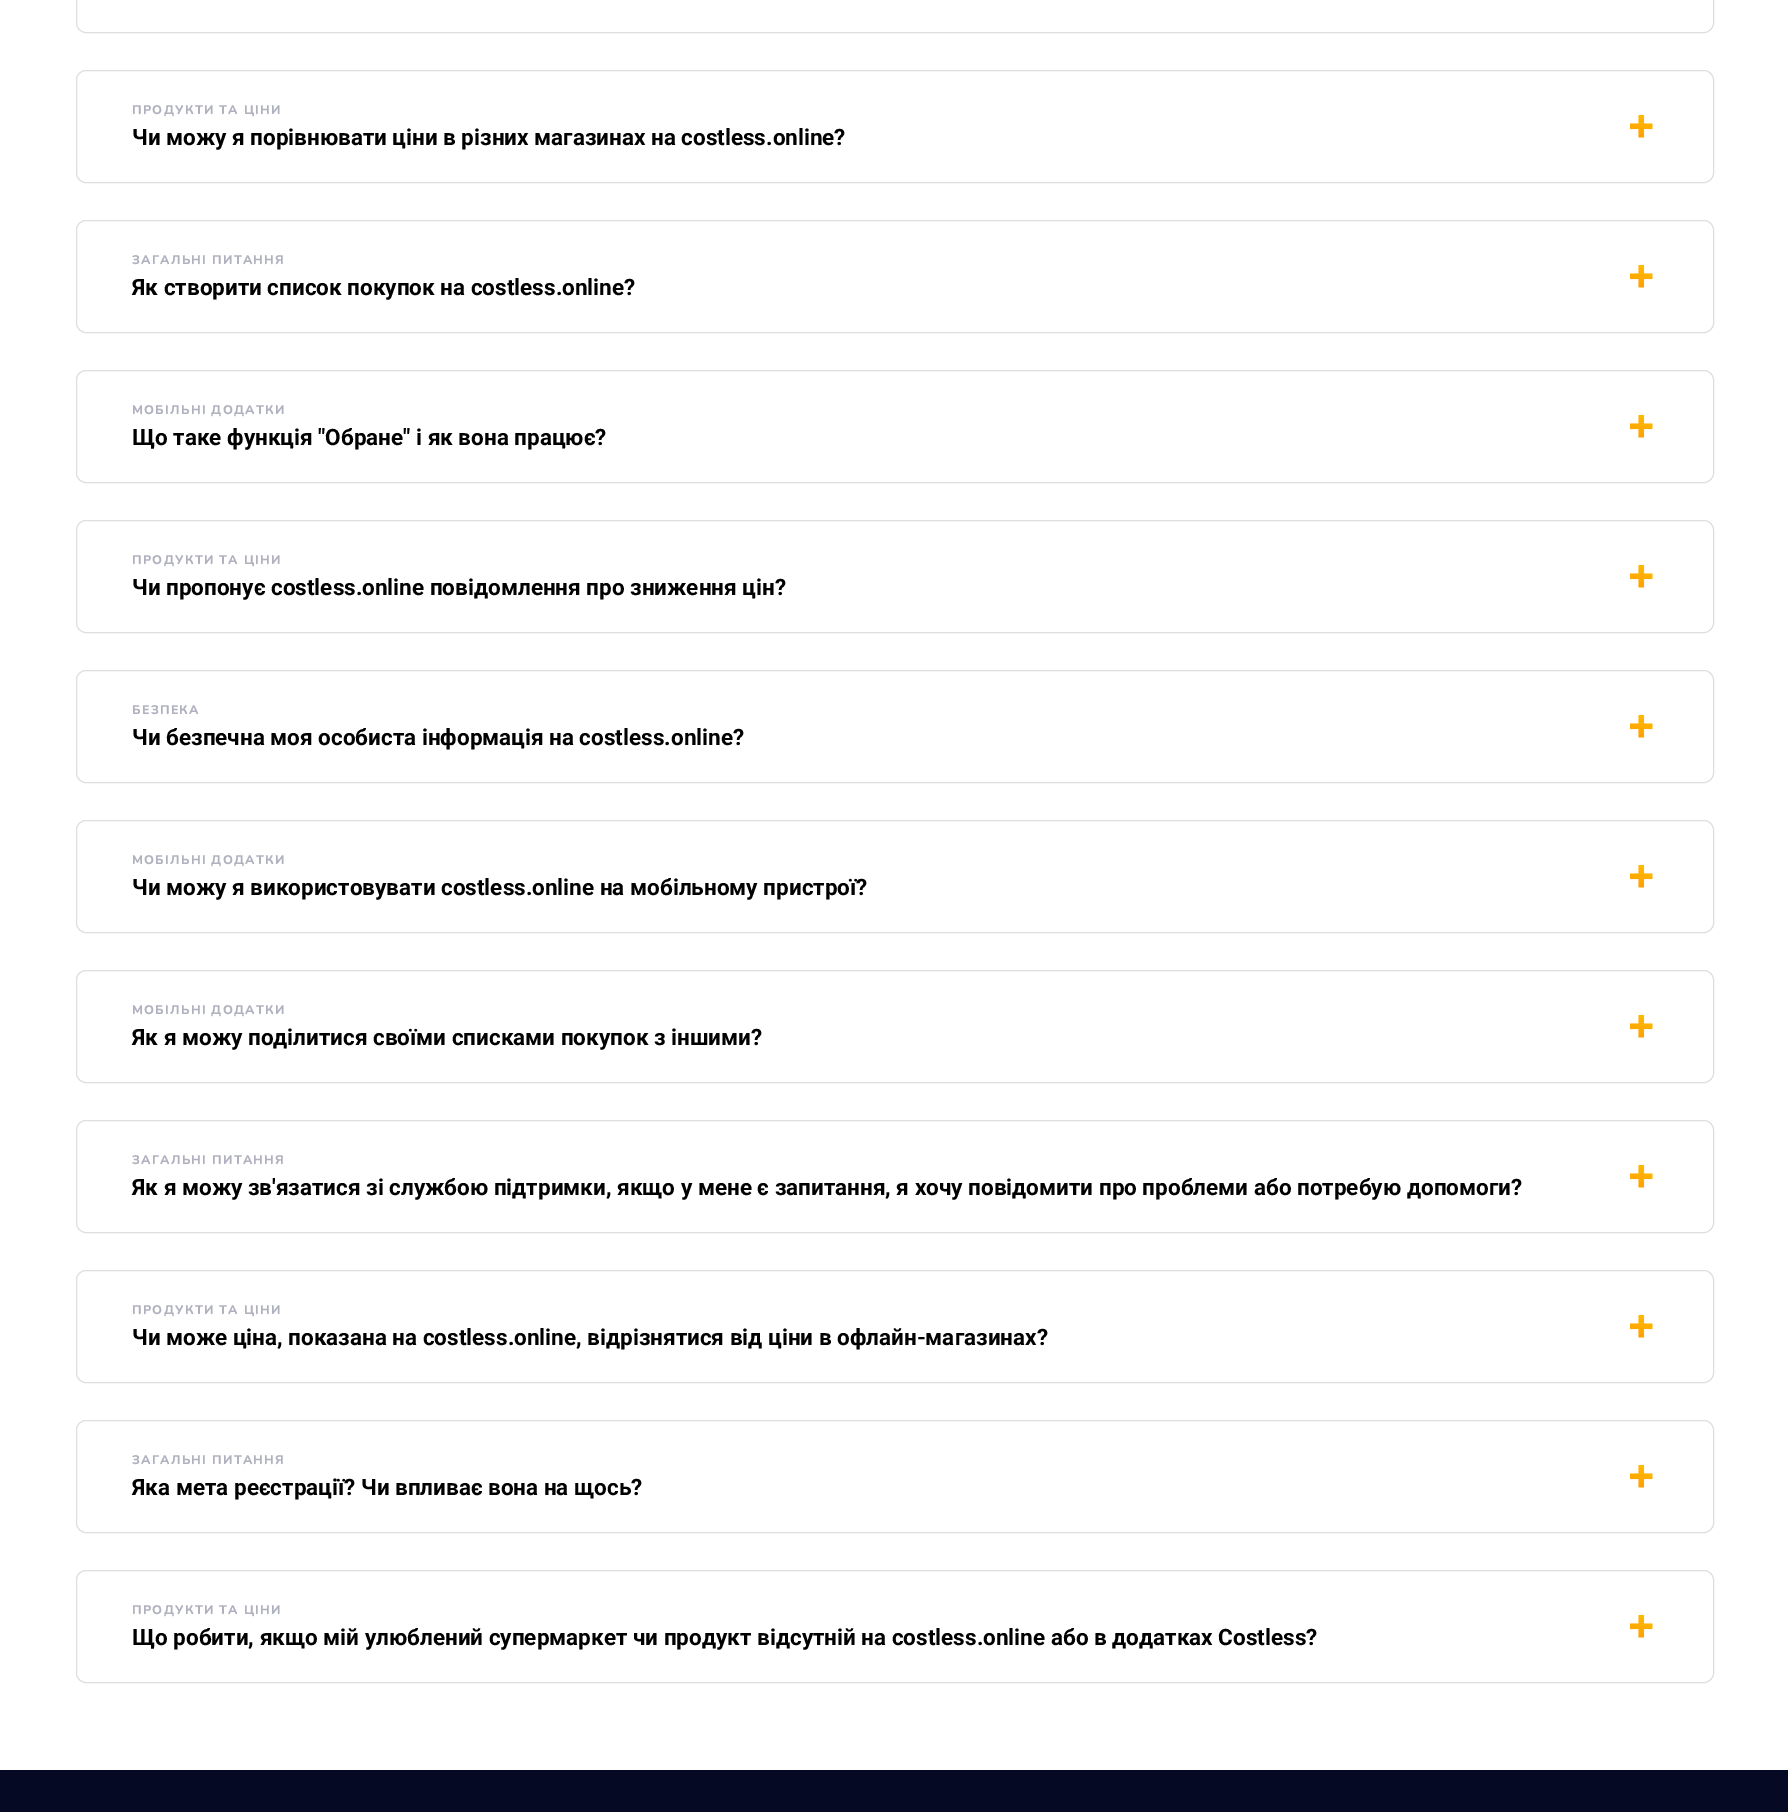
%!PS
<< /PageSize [1788 1812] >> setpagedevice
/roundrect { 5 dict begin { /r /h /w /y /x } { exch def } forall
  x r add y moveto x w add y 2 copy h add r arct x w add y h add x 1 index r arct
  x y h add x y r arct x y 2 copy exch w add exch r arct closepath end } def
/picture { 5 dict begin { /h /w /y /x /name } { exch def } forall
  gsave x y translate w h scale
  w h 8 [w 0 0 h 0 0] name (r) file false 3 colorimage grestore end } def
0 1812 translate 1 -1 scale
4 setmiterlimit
1 setgray
0 0 1788 1812 rectfill
0.871 0.871 0.882 setrgbcolor
76.5 -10.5 1637 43 9.5 roundrect stroke
76.5 70.5 1637 112 9.5 roundrect stroke
/Nunito-ExtraBold [12.5 0 0 -12.5 0 0] selectfont
0.69 0.694 0.745 setrgbcolor
132 114 moveto 1.25 0 (ПРОДУКТИ ТА ЦІНИ) ashow
/Roboto-Bold [22.5 0 0 -22.5 0 0] selectfont
0 setgray
132 145 moveto (Чи можу я порівнювати ціни в різних магазинах на costless.online?) show
(img1.rgb) 1630 115 23 23 picture
0.871 0.871 0.882 setrgbcolor
76.5 220.5 1637 112 9.5 roundrect stroke
/Nunito-ExtraBold [12.5 0 0 -12.5 0 0] selectfont
0.69 0.694 0.745 setrgbcolor
132 264 moveto 1.25 0 (ЗАГАЛЬНІ ПИТАННЯ) ashow
/Roboto-Bold [22.5 0 0 -22.5 0 0] selectfont
0 setgray
132 295 moveto (Як створити список покупок на costless.online?) show
(img1.rgb) 1630 265 23 23 picture
0.871 0.871 0.882 setrgbcolor
76.5 370.5 1637 112 9.5 roundrect stroke
/Nunito-ExtraBold [12.5 0 0 -12.5 0 0] selectfont
0.69 0.694 0.745 setrgbcolor
132 414 moveto 1.25 0 (МОБІЛЬНІ ДОДАТКИ) ashow
/Roboto-Bold [22.5 0 0 -22.5 0 0] selectfont
0 setgray
132 445 moveto (Що таке функція "Обране" і як вона працює?) show
(img1.rgb) 1630 415 23 23 picture
0.871 0.871 0.882 setrgbcolor
76.5 520.5 1637 112 9.5 roundrect stroke
/Nunito-ExtraBold [12.5 0 0 -12.5 0 0] selectfont
0.69 0.694 0.745 setrgbcolor
132 564 moveto 1.25 0 (ПРОДУКТИ ТА ЦІНИ) ashow
/Roboto-Bold [22.5 0 0 -22.5 0 0] selectfont
0 setgray
132 595 moveto (Чи пропонує costless.online повідомлення про зниження цін?) show
(img1.rgb) 1630 565 23 23 picture
0.871 0.871 0.882 setrgbcolor
76.5 670.5 1637 112 9.5 roundrect stroke
/Nunito-ExtraBold [12.5 0 0 -12.5 0 0] selectfont
0.69 0.694 0.745 setrgbcolor
132 714 moveto 1.25 0 (БЕЗПЕКА) ashow
/Roboto-Bold [22.5 0 0 -22.5 0 0] selectfont
0 setgray
132 745 moveto (Чи безпечна моя особиста інформація на costless.online?) show
(img1.rgb) 1630 715 23 23 picture
0.871 0.871 0.882 setrgbcolor
76.5 820.5 1637 112 9.5 roundrect stroke
/Nunito-ExtraBold [12.5 0 0 -12.5 0 0] selectfont
0.69 0.694 0.745 setrgbcolor
132 864 moveto 1.25 0 (МОБІЛЬНІ ДОДАТКИ) ashow
/Roboto-Bold [22.5 0 0 -22.5 0 0] selectfont
0 setgray
132 895 moveto (Чи можу я використовувати costless.online на мобільному пристрої?) show
(img1.rgb) 1630 865 23 23 picture
0.871 0.871 0.882 setrgbcolor
76.5 970.5 1637 112 9.5 roundrect stroke
/Nunito-ExtraBold [12.5 0 0 -12.5 0 0] selectfont
0.69 0.694 0.745 setrgbcolor
132 1014 moveto 1.25 0 (МОБІЛЬНІ ДОДАТКИ) ashow
/Roboto-Bold [22.5 0 0 -22.5 0 0] selectfont
0 setgray
132 1045 moveto (Як я можу поділитися своїми списками покупок з іншими?) show
(img1.rgb) 1630 1015 23 23 picture
0.871 0.871 0.882 setrgbcolor
76.5 1120.5 1637 112 9.5 roundrect stroke
/Nunito-ExtraBold [12.5 0 0 -12.5 0 0] selectfont
0.69 0.694 0.745 setrgbcolor
132 1164 moveto 1.25 0 (ЗАГАЛЬНІ ПИТАННЯ) ashow
/Roboto-Bold [22.5 0 0 -22.5 0 0] selectfont
0 setgray
132 1195 moveto (Як я можу зв'язатися зі службою підтримки, якщо у мене є запитання, я хочу повідомити про проблеми або потребую допомоги?) show
(img1.rgb) 1630 1165 23 23 picture
0.871 0.871 0.882 setrgbcolor
76.5 1270.5 1637 112 9.5 roundrect stroke
/Nunito-ExtraBold [12.5 0 0 -12.5 0 0] selectfont
0.69 0.694 0.745 setrgbcolor
132 1314 moveto 1.25 0 (ПРОДУКТИ ТА ЦІНИ) ashow
/Roboto-Bold [22.5 0 0 -22.5 0 0] selectfont
0 setgray
132 1345 moveto (Чи може ціна, показана на costless.online, відрізнятися від ціни в офлайн-магазинах?) show
(img1.rgb) 1630 1315 23 23 picture
0.871 0.871 0.882 setrgbcolor
76.5 1420.5 1637 112 9.5 roundrect stroke
/Nunito-ExtraBold [12.5 0 0 -12.5 0 0] selectfont
0.69 0.694 0.745 setrgbcolor
132 1464 moveto 1.25 0 (ЗАГАЛЬНІ ПИТАННЯ) ashow
/Roboto-Bold [22.5 0 0 -22.5 0 0] selectfont
0 setgray
132 1495 moveto (Яка мета реєстрації? Чи впливає вона на щось?) show
(img1.rgb) 1630 1465 23 23 picture
0.871 0.871 0.882 setrgbcolor
76.5 1570.5 1637 112 9.5 roundrect stroke
/Nunito-ExtraBold [12.5 0 0 -12.5 0 0] selectfont
0.69 0.694 0.745 setrgbcolor
132 1614 moveto 1.25 0 (ПРОДУКТИ ТА ЦІНИ) ashow
/Roboto-Bold [22.5 0 0 -22.5 0 0] selectfont
0 setgray
132 1645 moveto (Що робити, якщо мій улюблений супермаркет чи продукт відсутній на costless.online або в додатках Costless?) show
(img1.rgb) 1630 1615 23 23 picture
0.024 0.035 0.137 setrgbcolor
0 1770 1788 42 rectfill
showpage
